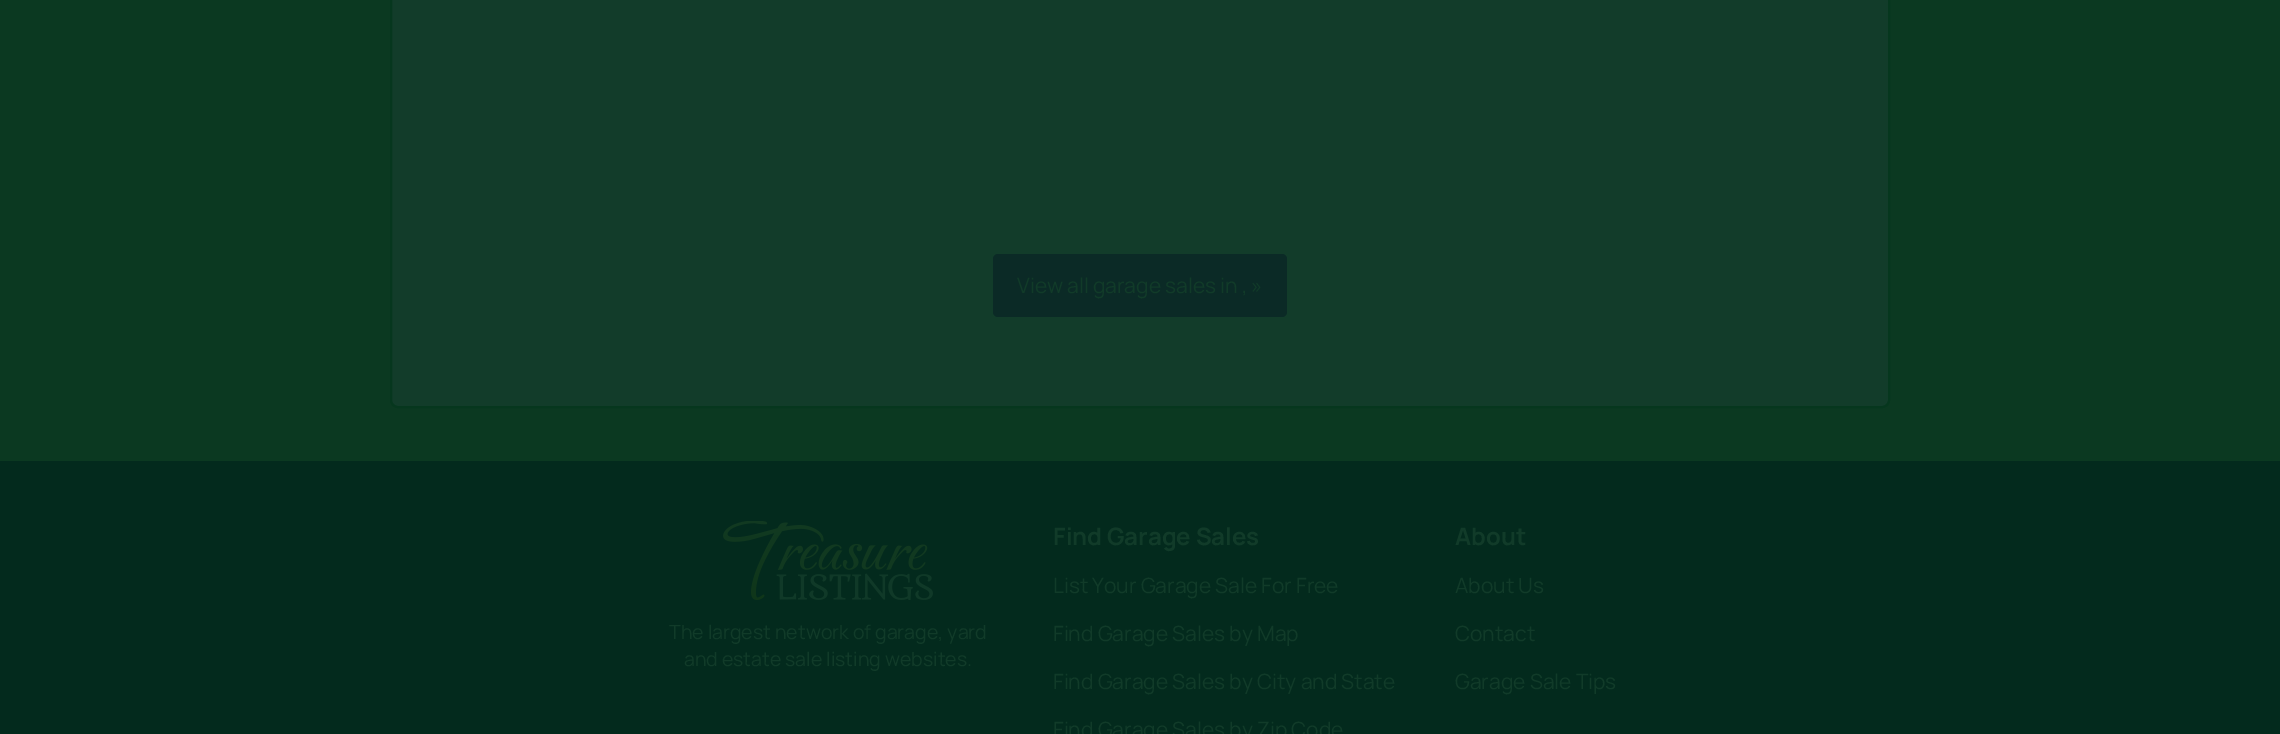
%!PS
<< /PageSize [2280 734] >> setpagedevice
/roundrect { 5 dict begin { /r /h /w /y /x } { exch def } forall
  x r add y moveto x w add y 2 copy h add r arct x w add y h add x 1 index r arct
  x y h add x y r arct x y 2 copy exch w add exch r arct closepath end } def
/picture { 5 dict begin { /h /w /y /x /name } { exch def } forall
  gsave x y translate w h scale
  w h 8 [w 0 0 h 0 0] name (r) file false 3 colorimage grestore end } def
0 734 translate 1 -1 scale
4 setmiterlimit
0.043 0.224 0.129 setrgbcolor
0 0 2280 734 rectfill
0.071 0.235 0.165 setrgbcolor
391 -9 1498 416 7 roundrect gsave fill grestore
0.024 0.216 0.118 setrgbcolor
2 setlinewidth
stroke
0.043 0.165 0.149 setrgbcolor
993 254 294 63 5 roundrect fill
/Manrope-Regular [21 0 0 -21 0 0] selectfont
0.067 0.231 0.161 setrgbcolor
1017 293 moveto (View all garage sales in , ») show
0.012 0.165 0.114 setrgbcolor
0 461 2280 273 rectfill
(img1.rgb) 723 521 210 79 picture
/Manrope-Regular [19.5 0 0 -19.5 0 0] selectfont
0.067 0.231 0.161 setrgbcolor
669 639 moveto (The largest network of garage, yard) show
684 666 moveto (and estate sale listing websites.) show
/Manrope-Bold [24 0 0 -24 0 0] selectfont
1053 545 moveto (Find Garage Sales) show
/Manrope-Regular [21 0 0 -21 0 0] selectfont
1053 593 moveto (List Your Garage Sale For Free) show
1053 641 moveto (Find Garage Sales by Map) show
1053 689 moveto (Find Garage Sales by City and State) show
1053 737 moveto (Find Garage Sales by Zip Code) show
/Manrope-Bold [24 0 0 -24 0 0] selectfont
1455 545 moveto (About) show
/Manrope-Regular [21 0 0 -21 0 0] selectfont
1455 593 moveto (About Us) show
1455 641 moveto (Contact) show
1455 689 moveto (Garage Sale Tips) show
showpage
